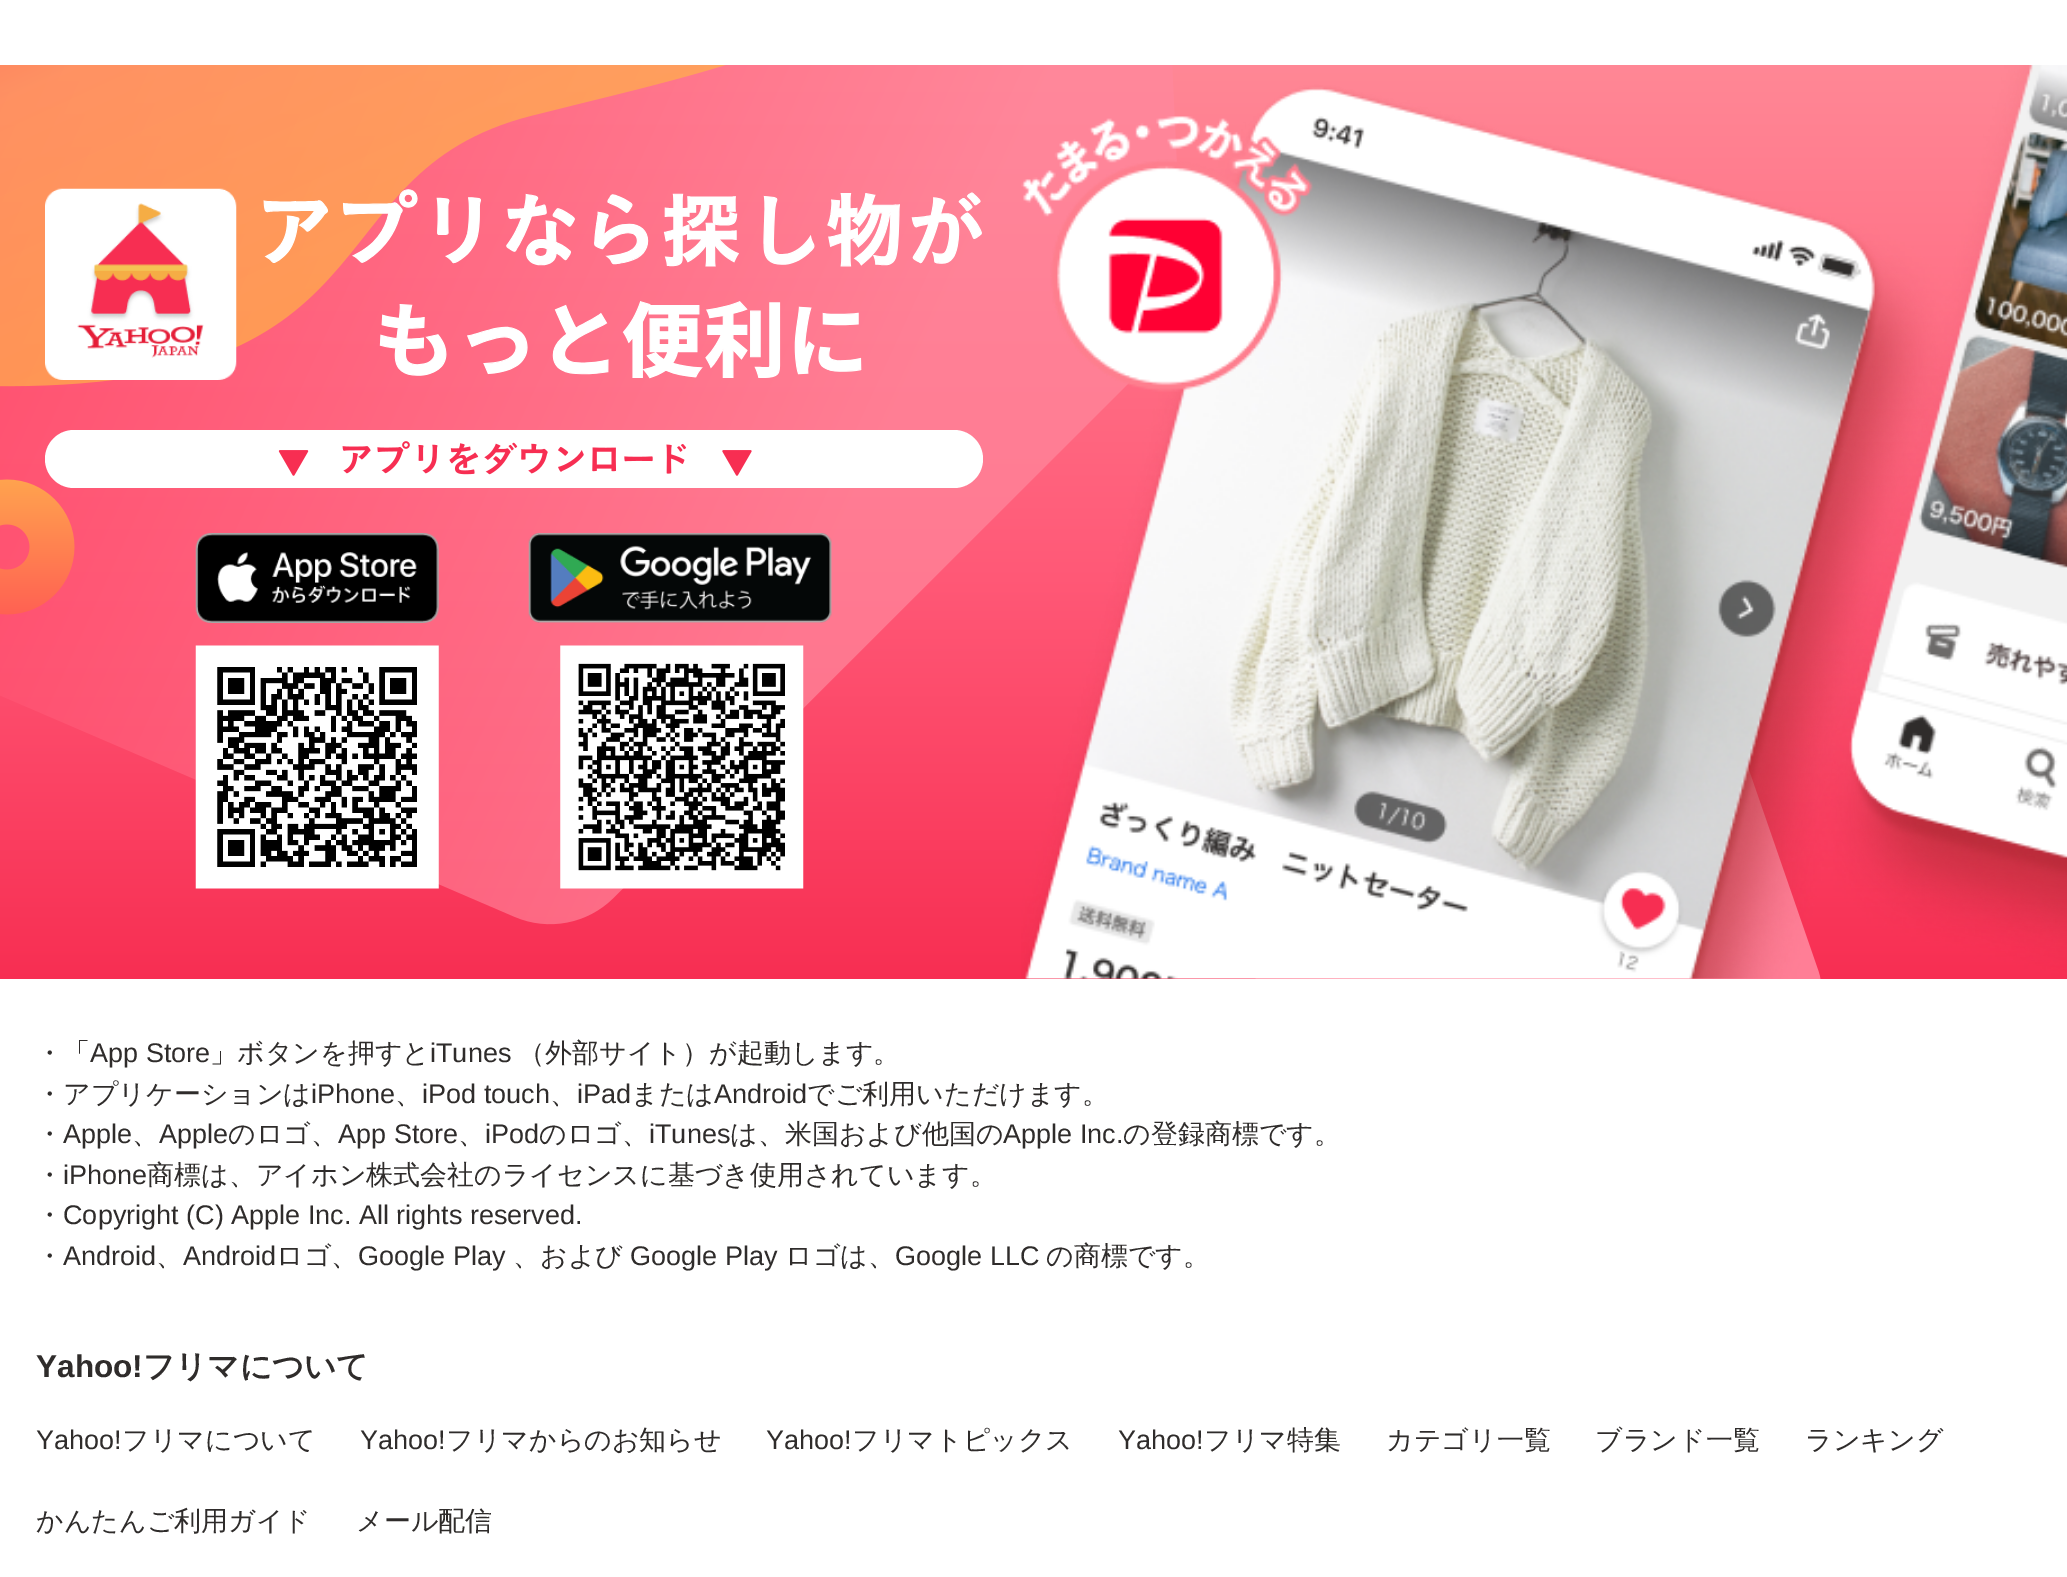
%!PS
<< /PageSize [2067 1577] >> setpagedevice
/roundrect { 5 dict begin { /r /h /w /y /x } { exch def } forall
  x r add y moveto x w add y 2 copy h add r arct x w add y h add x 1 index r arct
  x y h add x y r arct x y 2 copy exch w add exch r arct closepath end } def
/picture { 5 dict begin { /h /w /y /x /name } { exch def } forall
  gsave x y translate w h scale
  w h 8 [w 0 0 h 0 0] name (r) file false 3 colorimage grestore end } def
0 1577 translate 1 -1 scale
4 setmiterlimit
1 setgray
0 0 2067 1577 rectfill
(img1.rgb) 0 65 2067 914 picture
(img2.rgb) 45 188 192 192 picture
(img3.rgb) 263 189 719 190 picture
45 430 938 58 29 roundrect fill
(img4.rgb) 278 441 474 35 picture
(img5.rgb) 195 533 244 90 picture
(img6.rgb) 195 645 244 244 picture
(img7.rgb) 528 533 304 90 picture
(img8.rgb) 560 645 244 244 picture
(img9.rgb) 1021 65 1046 914 picture
/WenQuanYiZenHei-Medium [27 0 0 -27 0 0] selectfont
0.184 0.173 0.169 setrgbcolor
36 1062 moveto (・「) show
/LiberationSans-Regular [27 0 0 -27 0 0] selectfont
90 1062 moveto (App Store) show
/WenQuanYiZenHei-Medium [27 0 0 -27 0 0] selectfont
210 1062 moveto (」ボタンを押すと) show
/LiberationSans-Regular [27 0 0 -27 0 0] selectfont
430 1062 moveto (iTunes) show
/WenQuanYiZenHei-Medium [27 0 0 -27 0 0] selectfont
518 1062 moveto (（外部サイト）が起動します。) show
36 1103 moveto (・アプリケーションは) show
/LiberationSans-Regular [27 0 0 -27 0 0] selectfont
311 1103 moveto (iPhone) show
/WenQuanYiZenHei-Medium [27 0 0 -27 0 0] selectfont
395 1103 moveto (、) show
/LiberationSans-Regular [27 0 0 -27 0 0] selectfont
422 1103 moveto (iPod touch) show
/WenQuanYiZenHei-Medium [27 0 0 -27 0 0] selectfont
550 1103 moveto (、) show
/LiberationSans-Regular [27 0 0 -27 0 0] selectfont
577 1103 moveto (iPad) show
/WenQuanYiZenHei-Medium [27 0 0 -27 0 0] selectfont
631 1103 moveto (または) show
/LiberationSans-Regular [27 0 0 -27 0 0] selectfont
714 1103 moveto (Android) show
/WenQuanYiZenHei-Medium [27 0 0 -27 0 0] selectfont
807 1103 moveto (でご利用いただけます。) show
36 1143 moveto (・) show
/LiberationSans-Regular [27 0 0 -27 0 0] selectfont
63 1143 moveto (Apple) show
159 1143 moveto (Apple) show
/WenQuanYiZenHei-Medium [27 0 0 -27 0 0] selectfont
228 1143 moveto (のロゴ、) show
/LiberationSans-Regular [27 0 0 -27 0 0] selectfont
338 1143 moveto (App Store) show
485 1143 moveto (iPod) show
/WenQuanYiZenHei-Medium [27 0 0 -27 0 0] selectfont
539 1143 moveto (のロゴ、) show
/LiberationSans-Regular [27 0 0 -27 0 0] selectfont
649 1143 moveto (iTunes) show
/WenQuanYiZenHei-Medium [27 0 0 -27 0 0] selectfont
730 1143 moveto (は、米国および他国の) show
/LiberationSans-Regular [27 0 0 -27 0 0] selectfont
1003 1143 moveto (Apple Inc.) show
/WenQuanYiZenHei-Medium [27 0 0 -27 0 0] selectfont
1123 1143 moveto (の登録商標です。) show
132 1143 moveto (、) show
458 1143 moveto (、) show
36 1184 moveto (・) show
/LiberationSans-Regular [27 0 0 -27 0 0] selectfont
63 1184 moveto (iPhone) show
/WenQuanYiZenHei-Medium [27 0 0 -27 0 0] selectfont
147 1184 moveto (商標は、アイホン株式会社のライセンスに基づき使用されています。) show
36 1224 moveto (・) show
/LiberationSans-Regular [27 0 0 -27 0 0] selectfont
63 1224 moveto (Copyright \(C\) Apple Inc. All rights reserved.) show
/WenQuanYiZenHei-Medium [27 0 0 -27 0 0] selectfont
36 1265 moveto (・) show
/LiberationSans-Regular [27 0 0 -27 0 0] selectfont
63 1265 moveto (Android) show
183 1265 moveto (Android) show
/WenQuanYiZenHei-Medium [27 0 0 -27 0 0] selectfont
276 1265 moveto (ロゴ、) show
/LiberationSans-Regular [27 0 0 -27 0 0] selectfont
358 1265 moveto (Google Play) show
/WenQuanYiZenHei-Medium [27 0 0 -27 0 0] selectfont
513 1265 moveto (、および) show
/LiberationSans-Regular [27 0 0 -27 0 0] selectfont
630 1265 moveto (Google Play) show
/WenQuanYiZenHei-Medium [27 0 0 -27 0 0] selectfont
785 1265 moveto (ロゴは、) show
/LiberationSans-Regular [27 0 0 -27 0 0] selectfont
895 1265 moveto (Google LLC) show
/WenQuanYiZenHei-Medium [27 0 0 -27 0 0] selectfont
1046 1265 moveto (の商標です。) show
156 1265 moveto (、) show
/LiberationSans-Bold [31.5 0 0 -31.5 0 0] selectfont
36 1377 moveto (Yahoo!) show
/WenQuanYiZenHei-Bold [31.5 0 0 -31.5 0 0] selectfont
143 1377 moveto (フリマについて) show
/LiberationSans-Regular [27 0 0 -27 0 0] selectfont
36 1449 moveto (Yahoo!) show
/WenQuanYiZenHei-Medium [27 0 0 -27 0 0] selectfont
122 1449 moveto (フリマについて) show
/LiberationSans-Regular [27 0 0 -27 0 0] selectfont
360 1449 moveto (Yahoo!) show
/WenQuanYiZenHei-Medium [27 0 0 -27 0 0] selectfont
446 1449 moveto (フリマからのお知らせ) show
/LiberationSans-Regular [27 0 0 -27 0 0] selectfont
766 1449 moveto (Yahoo!) show
/WenQuanYiZenHei-Medium [27 0 0 -27 0 0] selectfont
852 1449 moveto (フリマトピックス) show
/LiberationSans-Regular [27 0 0 -27 0 0] selectfont
1118 1449 moveto (Yahoo!) show
/WenQuanYiZenHei-Medium [27 0 0 -27 0 0] selectfont
1204 1449 moveto (フリマ特集) show
1386 1449 moveto (カテゴリ一覧) show
1595 1449 moveto (ブランド一覧) show
1805 1449 moveto (ランキング) show
36 1530 moveto (かんたんご利用ガイド) show
356 1530 moveto (メール配信) show
showpage
